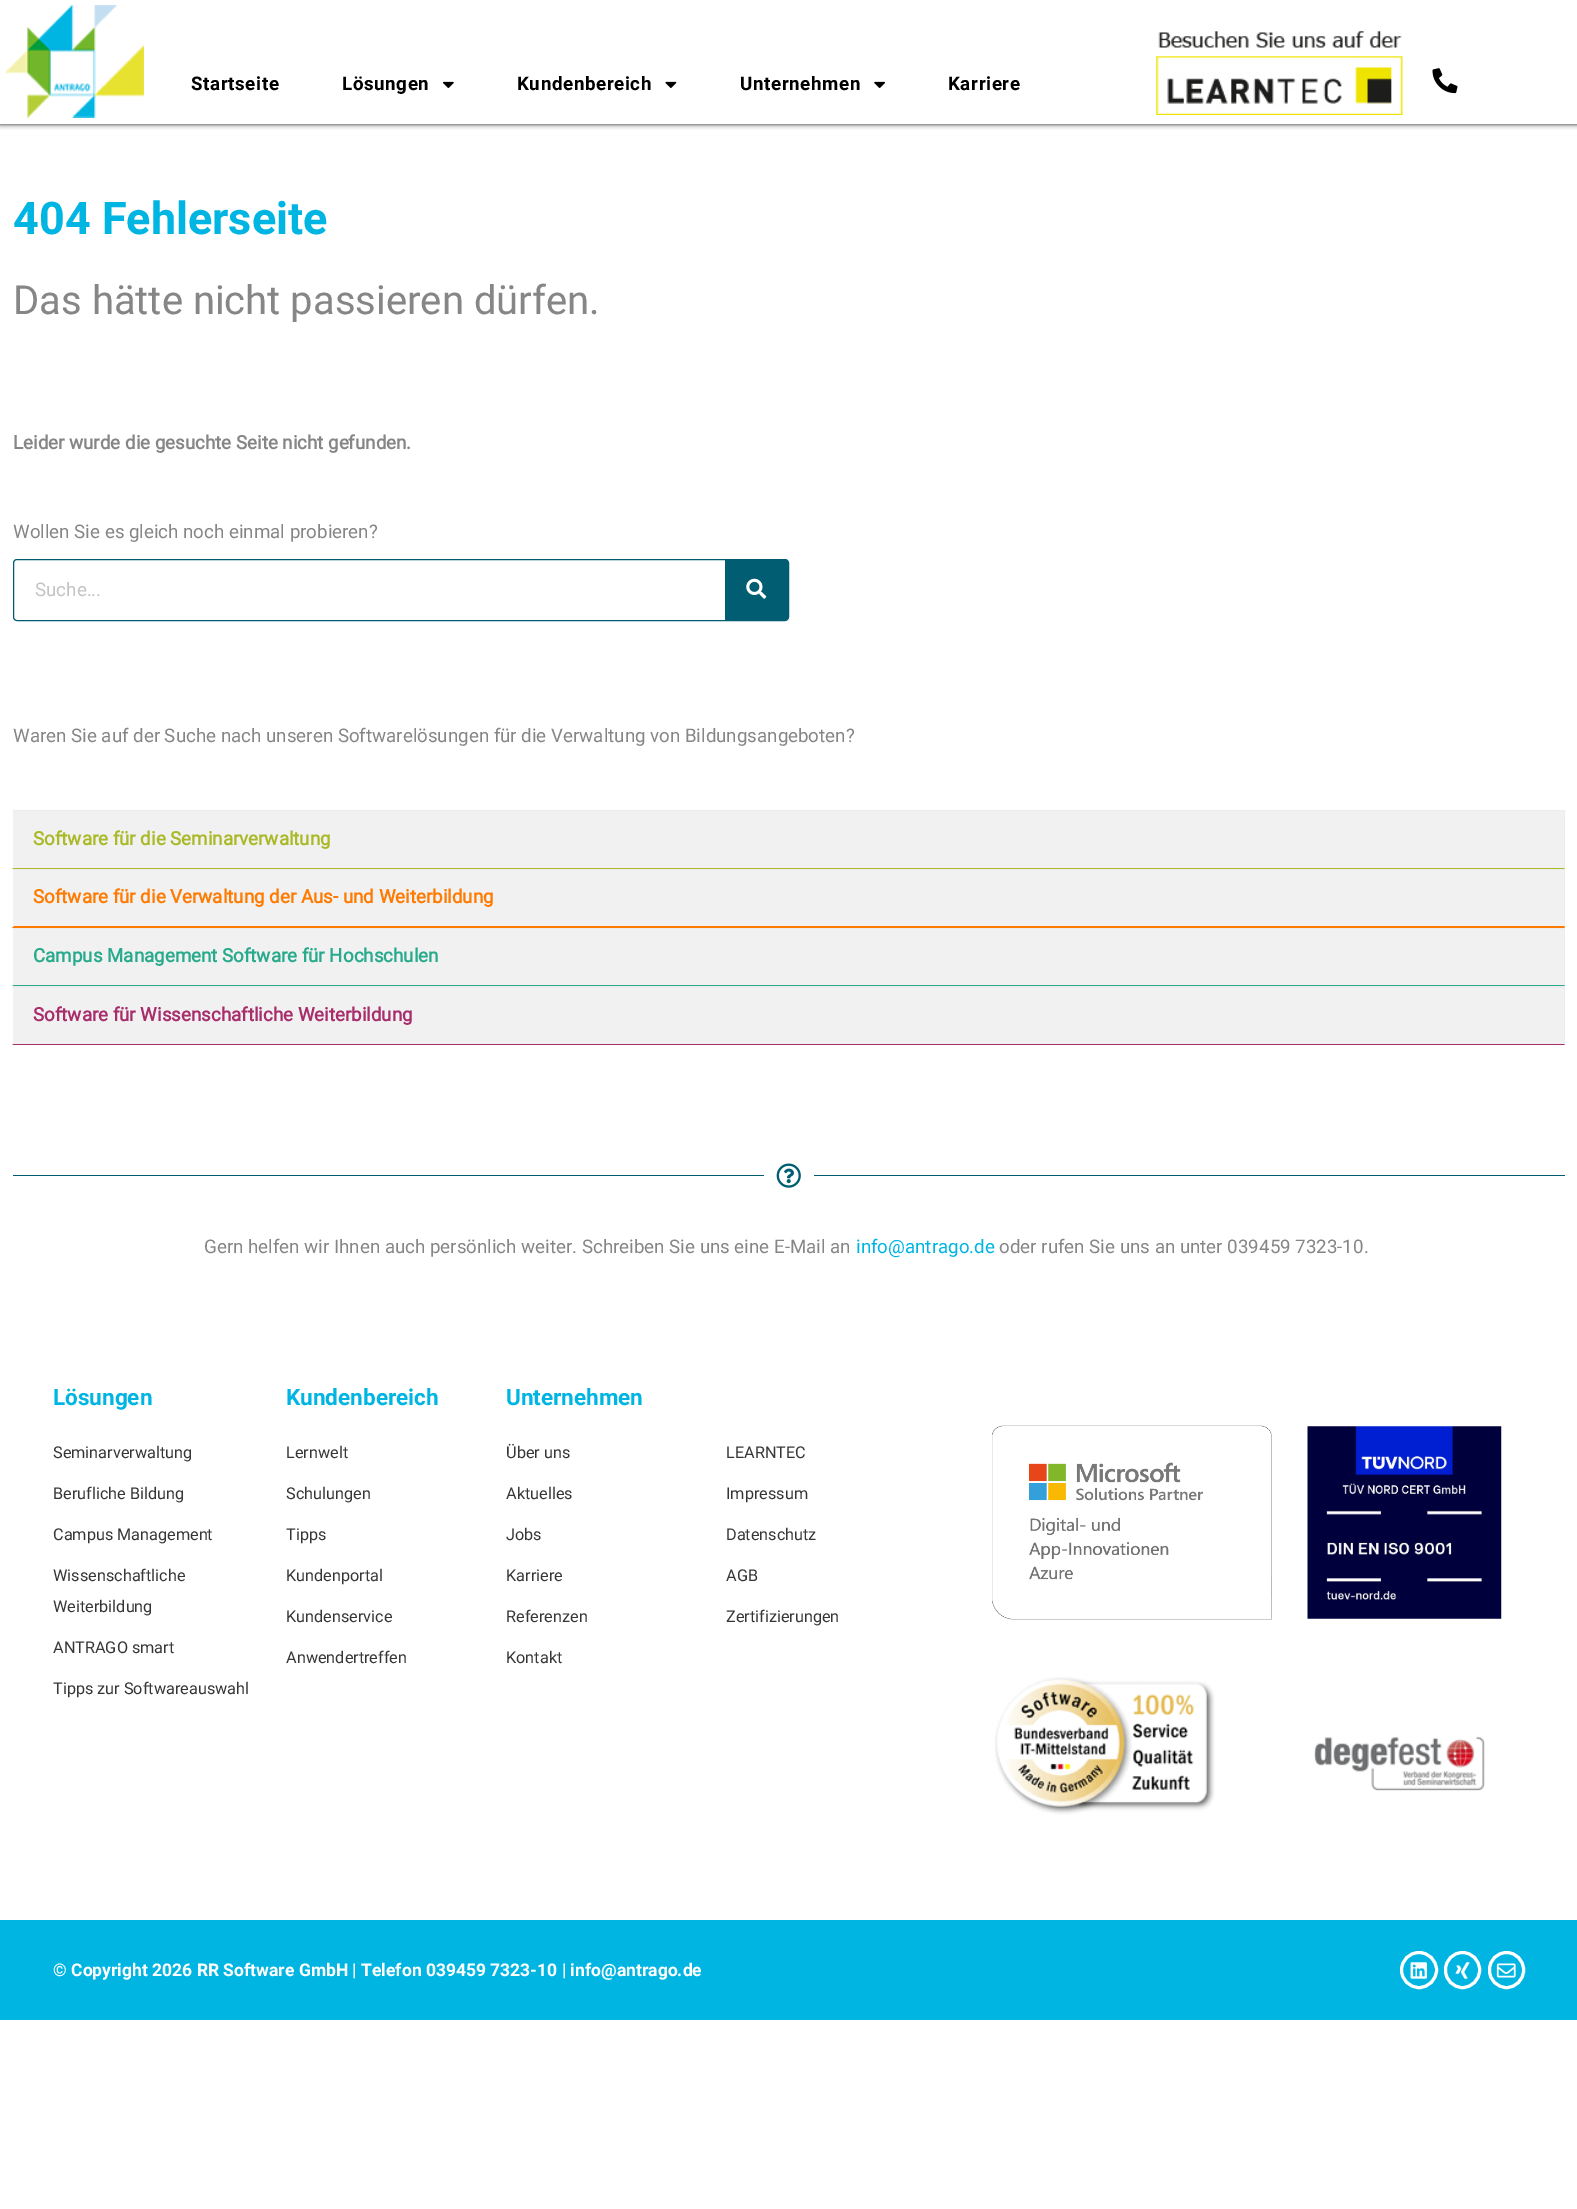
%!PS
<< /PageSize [1577 2209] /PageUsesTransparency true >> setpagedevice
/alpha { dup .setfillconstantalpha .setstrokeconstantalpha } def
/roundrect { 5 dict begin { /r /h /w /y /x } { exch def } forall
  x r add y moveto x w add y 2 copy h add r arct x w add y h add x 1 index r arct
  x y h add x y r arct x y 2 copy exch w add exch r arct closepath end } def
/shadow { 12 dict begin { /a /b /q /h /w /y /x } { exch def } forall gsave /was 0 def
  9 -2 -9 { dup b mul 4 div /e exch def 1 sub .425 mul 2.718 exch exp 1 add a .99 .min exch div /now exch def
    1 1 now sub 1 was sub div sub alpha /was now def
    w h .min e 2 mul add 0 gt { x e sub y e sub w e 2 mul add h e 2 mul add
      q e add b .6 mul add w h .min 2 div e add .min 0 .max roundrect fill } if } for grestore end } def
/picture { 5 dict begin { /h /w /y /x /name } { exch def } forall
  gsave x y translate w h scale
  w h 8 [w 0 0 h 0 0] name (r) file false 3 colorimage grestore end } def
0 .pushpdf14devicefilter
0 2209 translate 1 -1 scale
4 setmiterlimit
1 setgray
0 0 1577 2209 rectfill
0 setgray
0 0 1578 124 0 2.5 0.5 shadow
0 0 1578 124 0 2.5 0.5 shadow
1 setgray
0 0 1577 124 rectfill
(img1.rgb) 5 5 139 113 picture
/Roboto-Bold [18.75 0 0 -18.75 0 0] selectfont
0 setgray
191 90 moveto 0.6 0 (Startseite) ashow
342 90 moveto 0.6 0 (Lösungen) ashow
(img2.rgb) 442 81 12 7 picture
517 90 moveto 0.6 0 (Kundenbereich) ashow
(img3.rgb) 665 81 12 7 picture
740 90 moveto 0.6 0 (Unternehmen) ashow
(img4.rgb) 874 81 11 7 picture
948 90 moveto 0.6 0 (Karriere) ashow
(img5.rgb) 1156 31 247 84 picture
(img6.rgb) 1432 68 26 26 picture
/Roboto-Bold [45 0 0 -45 0 0] selectfont
0 0.71 0.886 setrgbcolor
13 234 moveto (404 Fehlerseite) show
/Roboto-Regular [40 0 0 -40 0 0] selectfont
0.525 setgray
13 314 moveto (Das hätte nicht passieren dürfen.) show
/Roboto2-Bold [18.75 0 0 -18.75 0 0] selectfont
13 449 moveto (Leider wurde die gesuchte Seite nicht gefunden.) show
/Roboto2-Regular [18.75 0 0 -18.75 0 0] selectfont
13 538 moveto (Wollen Sie es gleich noch einmal probieren?) show
0 0.365 0.447 setrgbcolor
13.5 559.5 775 61 3.5 roundrect stroke
0.765 setgray
35 596 moveto (Suche...) show
0 0.365 0.447 setrgbcolor
newpath 725 560 moveto 785.5 560 lineto 787 560 788 561 788 562.5 curveto 788 617.5 lineto 788 619 787 620 785.5 620 curveto 725 620 lineto closepath fill
(img7.rgb) 746 578 21 21 picture
0.525 setgray
13 742 moveto (Waren Sie auf der Suche nach unseren Softwarelösungen für die Verwaltung von Bildungsangeboten?) show
0.945 setgray
13 810 1552 235 rectfill
0.925 setgray
newpath 12 810 moveto 1565 810 lineto 1564 811 lineto 14 811 lineto closepath fill
newpath 1565 810 moveto 1565 869 lineto 1564 868 lineto 1564 811 lineto closepath fill
0.667 0.725 0.157 setrgbcolor
newpath 1565 869 moveto 12 869 lineto 14 868 lineto 1564 868 lineto closepath fill
/Roboto2-Bold [18.75 0 0 -18.75 0 0] selectfont
33 845 moveto (Software für die Seminarverwaltung) show
0.925 setgray
newpath 12 869 moveto 1565 869 lineto 1564 870 lineto 14 870 lineto closepath fill
newpath 1565 869 moveto 1565 928 lineto 1564 926 lineto 1564 870 lineto closepath fill
0.996 0.478 0 setrgbcolor
newpath 1565 928 moveto 12 928 lineto 14 926 lineto 1564 926 lineto closepath fill
33 903 moveto (Software für die Verwaltung der Aus- und Weiterbildung) show
0.925 setgray
newpath 12 928 moveto 1565 928 lineto 1564 929 lineto 14 929 lineto closepath fill
newpath 1565 928 moveto 1565 986 lineto 1564 985 lineto 1564 929 lineto closepath fill
0.157 0.667 0.549 setrgbcolor
newpath 1565 986 moveto 12 986 lineto 14 985 lineto 1564 985 lineto closepath fill
33 962 moveto (Campus Management Software für Hochschulen) show
0.925 setgray
newpath 12 986 moveto 1565 986 lineto 1564 988 lineto 14 988 lineto closepath fill
newpath 1565 986 moveto 1565 1045 lineto 1564 1044 lineto 1564 988 lineto closepath fill
0.659 0.176 0.42 setrgbcolor
newpath 1565 1045 moveto 12 1045 lineto 14 1044 lineto 1564 1044 lineto closepath fill
33 1021 moveto (Software für Wissenschaftliche Weiterbildung) show
0 0.365 0.447 setrgbcolor
13 1175 751 1 rectfill
(img8.rgb) 776 1163 25 25 picture
814 1175 751 1 rectfill
/Roboto2-Regular [18.75 0 0 -18.75 0 0] selectfont
0.525 setgray
204 1253 moveto (Gern helfen wir Ihnen auch persönlich weiter. Schreiben Sie uns eine E-Mail an) show
0 0.71 0.886 setrgbcolor
856 1253 moveto (info@antrago.de) show
0.525 setgray
999 1253 moveto (oder rufen Sie uns an unter 039459 7323-10.) show
/Roboto-Bold [22.5 0 0 -22.5 0 0] selectfont
0 0.71 0.886 setrgbcolor
53 1405 moveto (Lösungen) show
/Roboto2-Regular [16.25 0 0 -16.25 0 0] selectfont
0.212 setgray
53 1458 moveto (Seminarverwaltung) show
53 1499 moveto (Berufliche Bildung) show
53 1540 moveto (Campus Management) show
53 1581 moveto (Wissenschaftliche) show
53 1612 moveto (Weiterbildung) show
53 1653 moveto (ANTRAGO smart) show
53 1694 moveto (Tipps zur Softwareauswahl) show
/Roboto-Bold [22.5 0 0 -22.5 0 0] selectfont
0 0.71 0.886 setrgbcolor
286 1405 moveto (Kundenbereich) show
/Roboto2-Regular [16.25 0 0 -16.25 0 0] selectfont
0.212 setgray
286 1458 moveto (Lernwelt) show
286 1499 moveto (Schulungen) show
286 1540 moveto (Tipps) show
286 1581 moveto (Kundenportal) show
286 1622 moveto (Kundenservice) show
286 1663 moveto (Anwendertreffen) show
/Roboto-Bold [22.5 0 0 -22.5 0 0] selectfont
0 0.71 0.886 setrgbcolor
506 1405 moveto (Unternehmen) show
/Roboto2-Regular [16.25 0 0 -16.25 0 0] selectfont
0.212 setgray
506 1458 moveto (Über uns) show
506 1499 moveto (Aktuelles) show
506 1540 moveto (Jobs) show
506 1581 moveto (Karriere) show
506 1622 moveto (Referenzen) show
506 1663 moveto (Kontakt) show
726 1458 moveto (LEARNTEC) show
726 1499 moveto (Impressum) show
726 1540 moveto (Datenschutz) show
726 1581 moveto (AGB) show
726 1622 moveto (Zertifizierungen) show
(img9.rgb) 992 1425 280 195 picture
(img10.rgb) 1307 1426 195 193 picture
(img11.rgb) 994 1677 221 138 picture
(img12.rgb) 1314 1736 171 55 picture
0 0.71 0.886 setrgbcolor
0 1920 1577 100 rectfill
/Roboto-Bold [17.5 0 0 -17.5 0 0] selectfont
1 setgray
53 1976 moveto (© Copyright 2026 RR Software GmbH | Telefon 039459 7323-10 | info@antrago.de) show
3 setlinewidth
newpath 1419 1970 17.5 0 360 arc closepath stroke
(img13.rgb) 1410 1962 17 17 picture
1445.5 1952.5 34 35 17 roundrect stroke
(img14.rgb) 1455 1962 15 17 picture
1489.5 1952.5 34 35 17 roundrect stroke
(img15.rgb) 1496 1963 20 15 picture
.poppdf14devicefilter showpage
